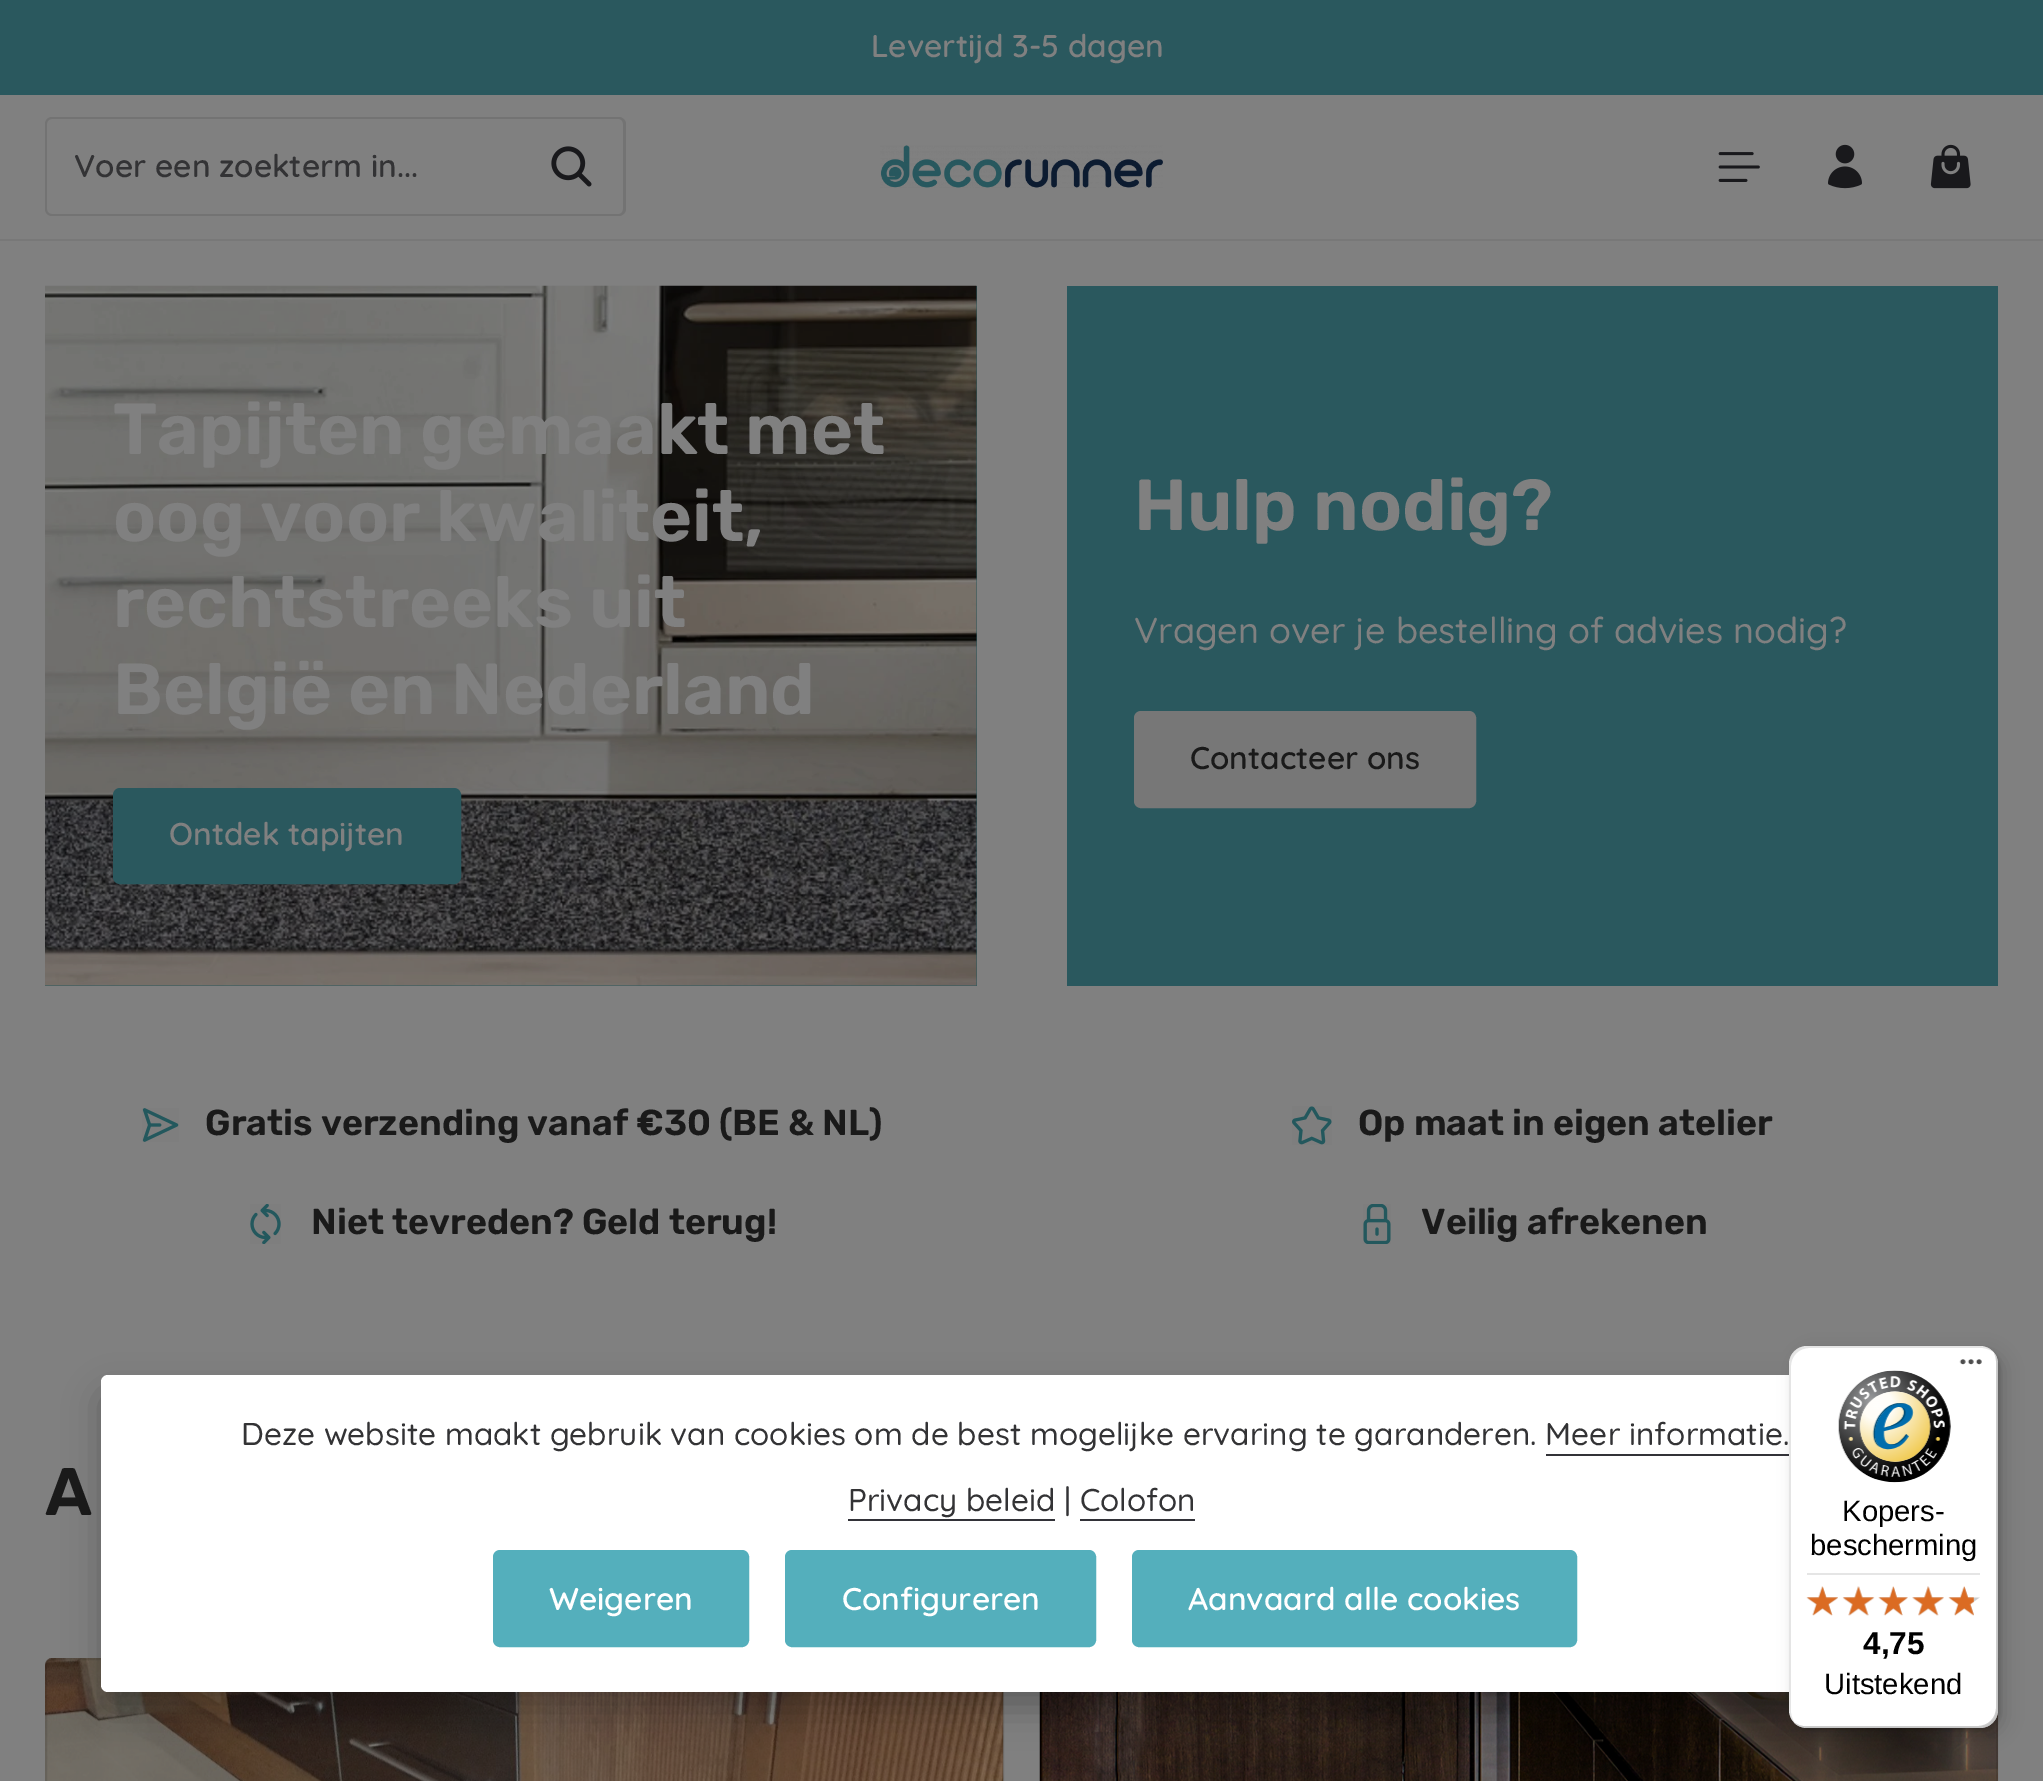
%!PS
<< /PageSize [2043 1781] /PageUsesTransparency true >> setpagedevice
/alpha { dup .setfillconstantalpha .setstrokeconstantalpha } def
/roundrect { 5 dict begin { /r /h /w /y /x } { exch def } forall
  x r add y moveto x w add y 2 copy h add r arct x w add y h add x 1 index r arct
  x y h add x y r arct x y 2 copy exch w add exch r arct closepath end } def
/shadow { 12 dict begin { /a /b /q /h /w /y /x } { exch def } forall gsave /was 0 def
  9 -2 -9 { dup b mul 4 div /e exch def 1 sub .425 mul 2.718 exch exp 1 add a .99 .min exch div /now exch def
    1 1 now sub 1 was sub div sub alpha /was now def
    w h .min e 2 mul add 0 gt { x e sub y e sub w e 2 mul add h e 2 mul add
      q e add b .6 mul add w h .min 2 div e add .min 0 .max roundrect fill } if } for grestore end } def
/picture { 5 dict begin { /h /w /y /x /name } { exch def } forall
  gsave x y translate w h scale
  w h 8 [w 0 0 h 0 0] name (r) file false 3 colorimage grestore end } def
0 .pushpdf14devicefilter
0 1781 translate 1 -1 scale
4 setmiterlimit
0.502 setgray
0 0 2043 1781 rectfill
0.165 0.345 0.369 setrgbcolor
0 0 2043 95 rectfill
/Quicksand-SemiBold [31.5 0 0 -31.5 0 0] selectfont
0.502 setgray
871 57 moveto (Levertijd 3-5 dagen) show
0.451 setgray
newpath 52 117 moveto 522 117 lineto 522 216 lineto 52 216 lineto 48 216 45 213 45 209 curveto 45 124 lineto 45 120 48 117 52 117 curveto closepath 52 119 moveto 522 119 lineto 522 214 lineto 52 214 lineto 49 214 47 212 47 209 curveto 47 124 lineto 47 121 49 119 52 119 curveto closepath eofill
0.2 0.2 0.208 setrgbcolor
74 177 moveto (Voer een zoekterm in...) show
0.502 setgray
newpath 520 117 moveto 619 117 lineto 623 117 626 120 626 124 curveto 626 209 lineto 626 213 623 216 619 216 curveto 520 216 lineto closepath fill
0.451 setgray
newpath 520 117 moveto 619 117 lineto 622 117 626 120 626 124 curveto 626 209 lineto 626 213 622 216 619 216 curveto 520 216 lineto closepath 520 119 moveto 619 119 lineto 621 119 623 121 623 124 curveto 623 209 lineto 623 212 621 214 619 214 curveto 520 214 lineto closepath eofill
(img1.rgb) 551 146 41 41 picture
(img2.rgb) 880 145 283 43 picture
(img3.rgb) 1718 152 42 30 picture
(img4.rgb) 1828 144 34 45 picture
(img5.rgb) 1930 144 41 45 picture
0.471 setgray
0 239 2043 2 rectfill
0.165 0.345 0.369 setrgbcolor
45 286 932 700 rectfill
(img6.rgb) 45 285 932 701 picture
/Rubik-SemiBold [72 0 0 -72 0 0] selectfont
0.502 setgray
113 454 moveto (Tapijten gemaakt met) show
113 541 moveto (oog voor kwaliteit,) show
113 627 moveto (rechtstreeks uit) show
113 714 moveto (België en Nederland) show
0.165 0.345 0.369 setrgbcolor
114 789 346 94 6 roundrect gsave fill grestore
2 setlinewidth
stroke
/Quicksand-SemiBold [31.5 0 0 -31.5 0 0] selectfont
0.502 setgray
169 845 moveto (Ontdek tapijten) show
0.165 0.345 0.369 setrgbcolor
1067 286 931 700 rectfill
/Rubik-SemiBold [72 0 0 -72 0 0] selectfont
0.502 setgray
1134 530 moveto (Hulp nodig?) show
/Quicksand-Light [36 0 0 -36 0 0] selectfont
1134 643 moveto (Vragen over je bestelling of advies nodig?) show
0.467 setgray
1135 712 340 95 6 roundrect gsave fill grestore
stroke
/Quicksand-SemiBold [31.5 0 0 -31.5 0 0] selectfont
0.102 setgray
1190 769 moveto (Contacteer ons) show
(img7.rgb) 142 1108 37 34 picture
/Rubik-SemiBold [36 0 0 -36 0 0] selectfont
205 1135 moveto (Gratis verzending vanaf €30 \(BE & NL\)) show
(img8.rgb) 1292 1106 40 39 picture
1358 1135 moveto (Op maat in eigen atelier) show
(img9.rgb) 250 1204 31 40 picture
311 1234 moveto (Niet tevreden? Geld terug!) show
(img10.rgb) 1363 1204 28 40 picture
1421 1234 moveto (Veilig afrekenen) show
/Rubik-SemiBold [67 0 0 -67 0 0] selectfont
45 1515 moveto (A) show
(img11.rgb) 45 1658 959 123 picture
0.1 alpha
0 setgray
46 1659 957 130 6 roundrect stroke
1 alpha
(img12.rgb) 1039 1692 959 89 picture
0.1 alpha
1041 1659 956 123 rectstroke
1 alpha
101 1393 1841 317 7 18 0.25 shadow
1 setgray
101 1375 1841 317 7 roundrect fill
/Quicksand-Light [31.5 0 0 -31.5 0 0] selectfont
0.2 0.2 0.208 setrgbcolor
241 1445 moveto (Deze website maakt gebruik van cookies om de best mogelijke ervaring te garanderen. Meer informatie.) show
0.196 0.196 0.22 setrgbcolor
1546 1454 243 2 rectfill
0.2 0.2 0.208 setrgbcolor
848 1511 moveto (Privacy beleid | Colofon) show
0.196 0.196 0.22 setrgbcolor
848 1519 207 2 rectfill
1080 1519 115 2 rectfill
0.329 0.686 0.737 setrgbcolor
494 1551 254 95 6 roundrect gsave fill grestore
stroke
/Quicksand-SemiBold [31.5 0 0 -31.5 0 0] selectfont
1 setgray
549 1610 moveto (Weigeren) show
0.329 0.686 0.737 setrgbcolor
786 1551 309 95 6 roundrect gsave fill grestore
stroke
1 setgray
842 1610 moveto (Configureren) show
0.329 0.686 0.737 setrgbcolor
1133 1551 443 95 6 roundrect gsave fill grestore
stroke
1 setgray
1188 1610 moveto (Aanvaard alle cookies) show
0 setgray
1796 1352 209 383 18 9 0.15 shadow
1791 1348 209 382 18 2 0.15 shadow
1 setgray
1789 1346 209 382 18 roundrect fill
0.1 alpha
0 setgray
newpath 1809 1348 moveto 1982 1348 lineto 1986 1348 1990 1350 1994 1352 curveto 1990 1348 1985 1346 1980 1346 curveto 1807 1346 lineto 1797 1346 1789 1354 1789 1364 curveto 1789 1710 lineto 1789 1715 1791 1720 1795 1724 curveto 1793 1720 1791 1716 1791 1712 curveto 1791 1366 lineto 1791 1356 1799 1348 1809 1348 curveto closepath fill
0.2 alpha
newpath 1795 1723 moveto 1798 1726 1802 1728 1807 1728 curveto 1980 1728 lineto 1990 1728 1998 1720 1998 1710 curveto 1998 1364 lineto 1998 1360 1996 1356 1994 1353 curveto 1995 1355 1996 1358 1996 1361 curveto 1996 1708 lineto 1996 1718 1988 1726 1978 1726 curveto 1804 1726 lineto 1801 1726 1798 1725 1795 1723 curveto closepath fill
0.196 setgray
newpath 1798 1726 moveto 1801 1727 1804 1728 1807 1728 curveto 1980 1728 lineto 1990 1728 1998 1720 1998 1710 curveto 1998 1364 lineto 1998 1361 1997 1358 1996 1355 curveto 1997 1357 1997 1360 1997 1362 curveto 1997 1709 lineto 1997 1719 1989 1727 1979 1727 curveto 1805 1727 lineto 1803 1727 1800 1727 1798 1726 curveto closepath fill
0.3 alpha
1 setgray
newpath 1794 1723 moveto 1797 1726 1802 1728 1807 1728 curveto 1980 1728 lineto 1990 1728 1998 1720 1998 1710 curveto 1998 1364 lineto 1998 1361 1997 1358 1996 1355 curveto 1997 1357 1997 1360 1997 1362 curveto 1997 1709 lineto 1997 1719 1989 1727 1979 1727 curveto 1806 1727 lineto 1801 1727 1797 1725 1794 1723 curveto closepath fill
1 alpha
(img13.rgb) 1959 1359 23 6 picture
(img14.rgb) 1838 1370 113 113 picture
/LiberationSans-Regular [29.25 0 0 -29.25 0 0] selectfont
0 setgray
1842 1521 moveto (Kopers-) show
1810 1555 moveto (bescherming) show
0.898 setgray
1807 1573 173 2 rectfill
(img20.rgb) 1807 1587 31 28 picture
(img15.rgb) 1806 1586 32 30 picture
(img21.rgb) 1843 1586 31 30 picture
(img16.rgb) 1842 1586 33 30 picture
(img22.rgb) 1878 1587 30 28 picture
(img17.rgb) 1878 1586 30 30 picture
(img23.rgb) 1912 1586 32 30 picture
(img18.rgb) 1912 1586 32 30 picture
(img24.rgb) 1949 1587 31 28 picture
(img19.rgb) 1948 1586 26 30 picture
/LiberationSans-Bold [31.5 0 0 -31.5 0 0] selectfont
0 setgray
1863 1654 moveto (4,75) show
/LiberationSans-Regular [29.25 0 0 -29.25 0 0] selectfont
1824 1694 moveto (Uitstekend) show
.poppdf14devicefilter showpage
